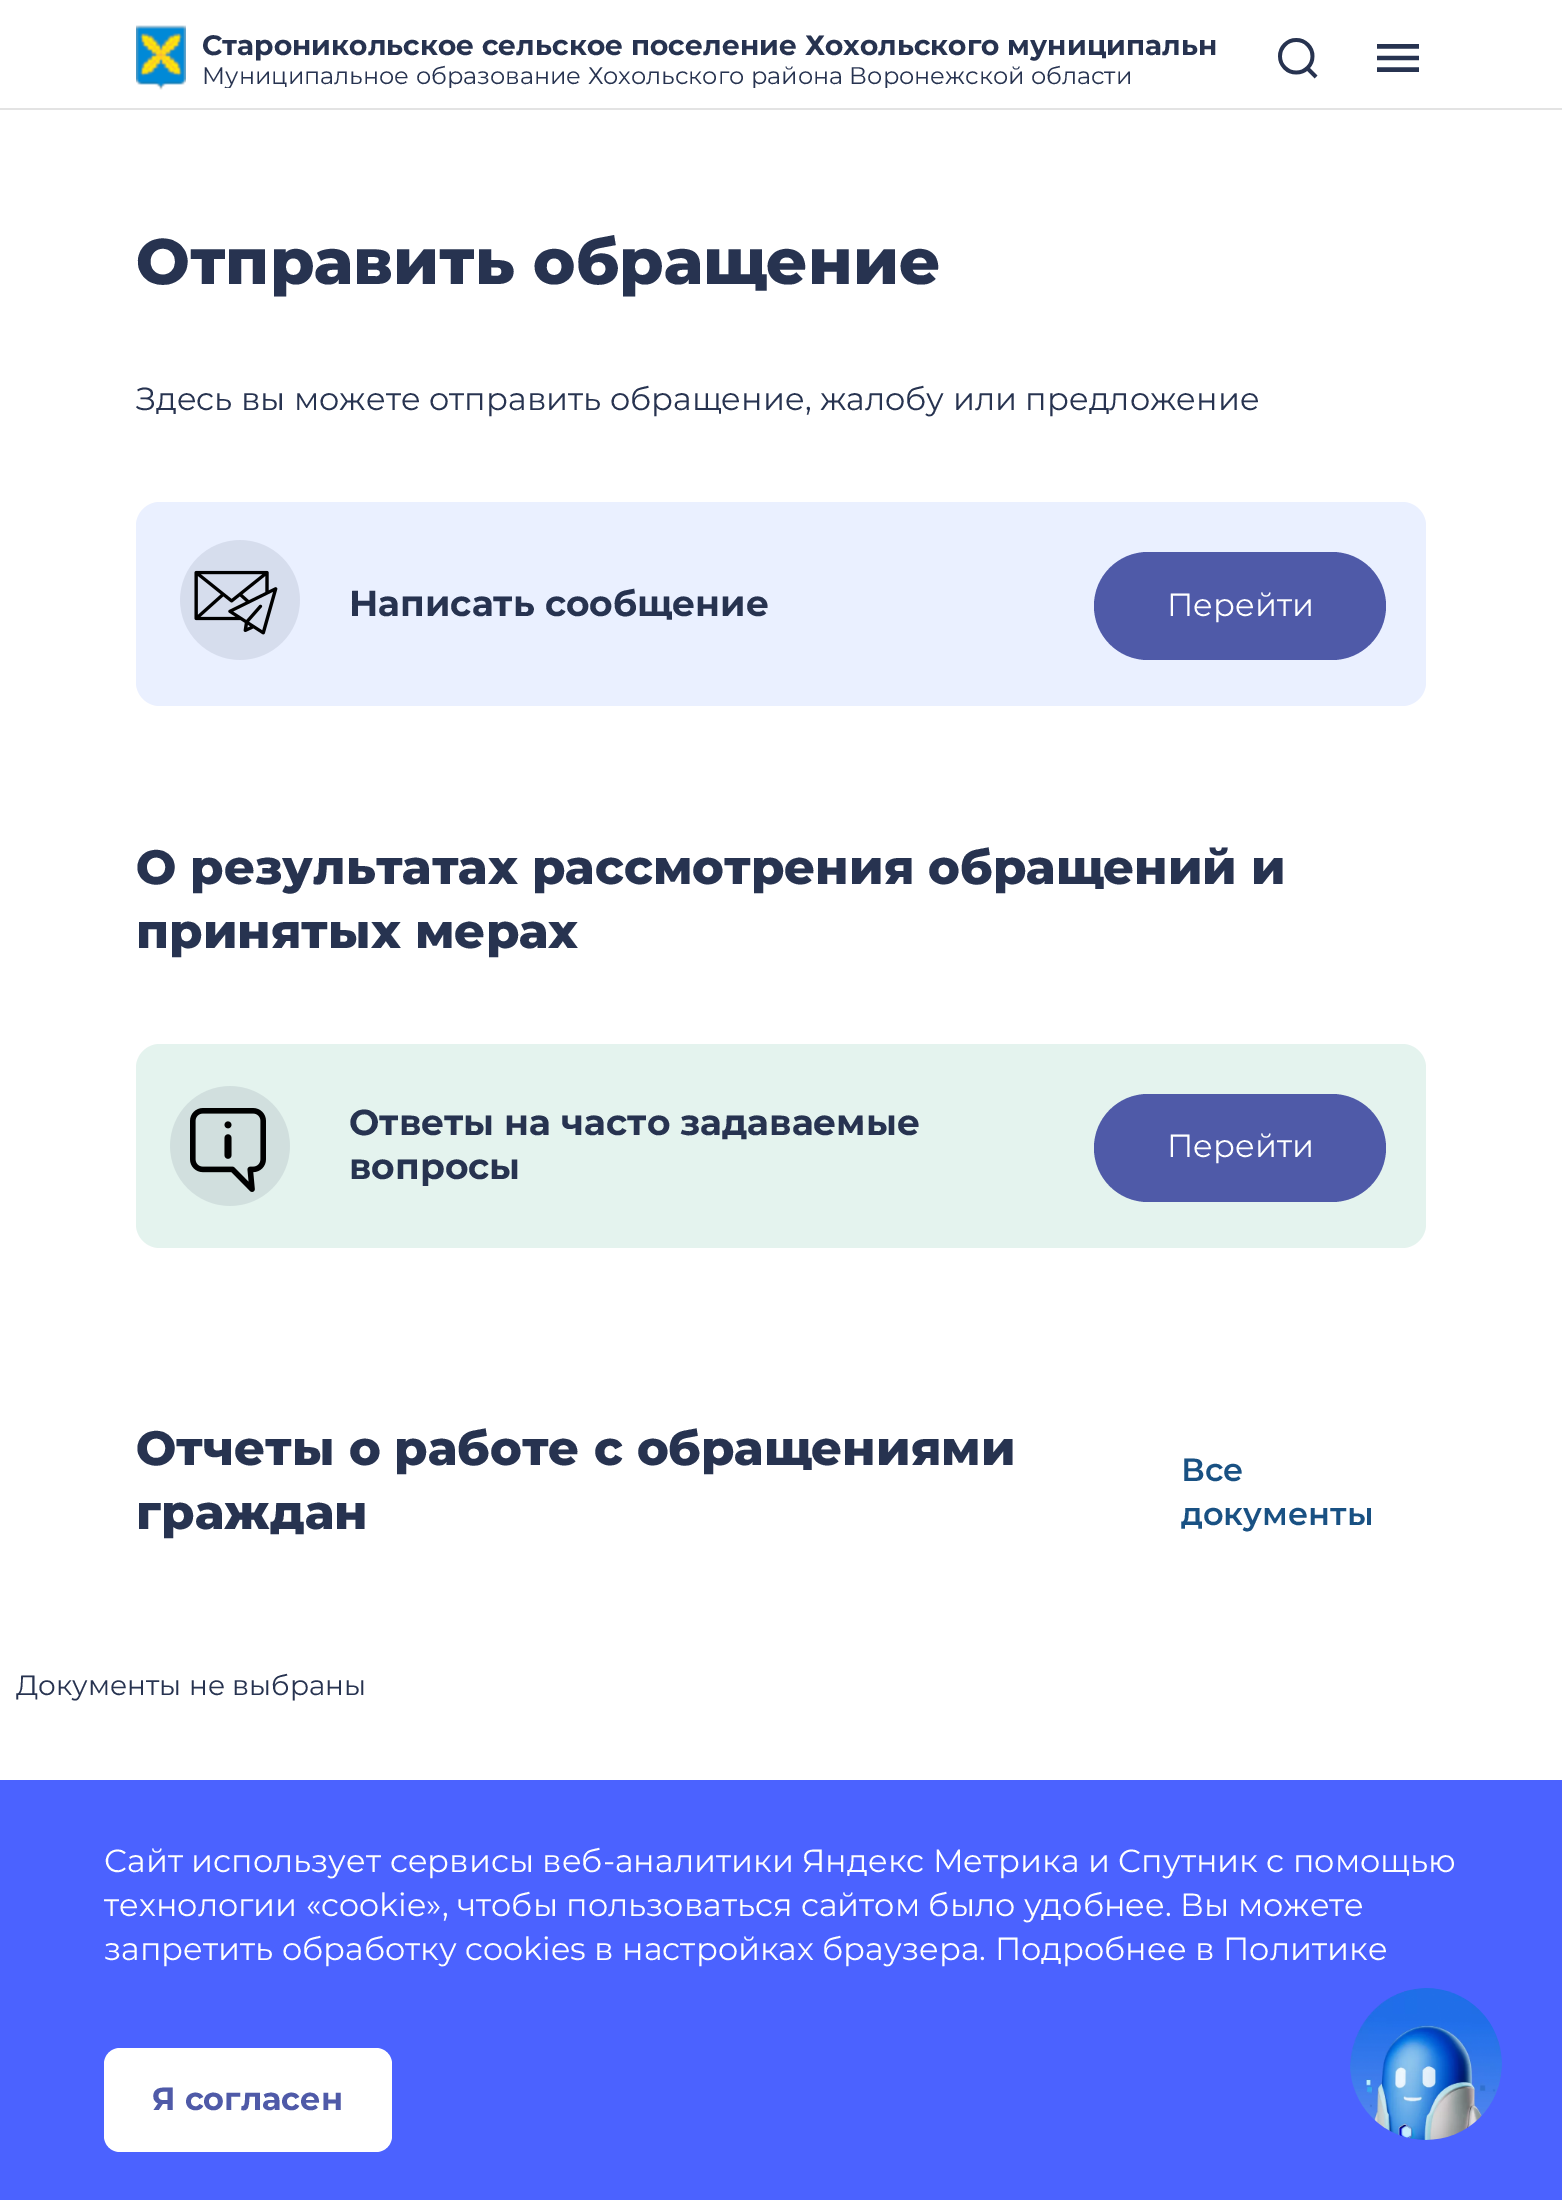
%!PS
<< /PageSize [1562 2200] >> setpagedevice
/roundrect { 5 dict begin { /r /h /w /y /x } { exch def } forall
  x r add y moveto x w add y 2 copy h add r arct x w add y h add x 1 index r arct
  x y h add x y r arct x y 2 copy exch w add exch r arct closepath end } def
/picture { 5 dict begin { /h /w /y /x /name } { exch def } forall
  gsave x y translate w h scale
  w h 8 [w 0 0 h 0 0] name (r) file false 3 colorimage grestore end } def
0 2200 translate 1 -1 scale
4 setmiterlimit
1 setgray
0 0 1562 2200 rectfill
0.89 setgray
0 108 1562 2 rectfill
(img1.rgb) 136 25 50 65 picture
/Montserrat-Bold [28 0 0 -28 0 0] selectfont
0.153 0.2 0.314 setrgbcolor
202 55 moveto (Староникольское сельское поселение Хохольского муниципальн) show
gsave
202 64 1024 24 rectclip
/Montserrat-Regular [24 0 0 -24 0 0] selectfont
202 84 moveto (Муниципальное образование Хохольского района Воронежской области) show
grestore
(img2.rgb) 1278 38 40 41 picture
(img3.rgb) 1377 44 42 28 picture
/Montserrat-ExtraBold [64 0 0 -64 0 0] selectfont
136 284 moveto (Отправить обращение) show
/Montserrat-Regular [32 0 0 -32 0 0] selectfont
136 410 moveto (Здесь вы можете отправить обращение, жалобу или предложение) show
0.918 0.941 1 setrgbcolor
136 502 1290 204 24 roundrect fill
(img4.rgb) 180 540 120 120 picture
/Montserrat-Bold [36 0 0 -36 0 0] selectfont
0.153 0.2 0.314 setrgbcolor
349 616 moveto (Написать сообщение) show
0.31 0.353 0.659 setrgbcolor
1094 552 292 108 54 roundrect fill
/Montserrat-Regular [32 0 0 -32 0 0] selectfont
1 setgray
1167 616 moveto (Перейти) show
/Montserrat-ExtraBold [48 0 0 -48 0 0] selectfont
0.153 0.2 0.314 setrgbcolor
136 884 moveto (О результатах рассмотрения обращений и) show
136 948 moveto (принятых мерах) show
0.894 0.953 0.933 setrgbcolor
136 1044 1290 204 24 roundrect fill
(img5.rgb) 170 1086 120 120 picture
/Montserrat-Bold [36 0 0 -36 0 0] selectfont
0.153 0.2 0.314 setrgbcolor
349 1135 moveto (Ответы на часто задаваемые) show
349 1179 moveto (вопросы) show
0.31 0.353 0.659 setrgbcolor
1094 1094 292 108 54 roundrect fill
/Montserrat-Regular [32 0 0 -32 0 0] selectfont
1 setgray
1167 1157 moveto (Перейти) show
/Montserrat-ExtraBold [48 0 0 -48 0 0] selectfont
0.153 0.2 0.314 setrgbcolor
136 1465 moveto (Отчеты о работе с обращениями) show
136 1529 moveto (граждан) show
/Montserrat-SemiBold [32 0 0 -32 0 0] selectfont
0.098 0.318 0.514 setrgbcolor
1181 1481 moveto (Все) show
1181 1525 moveto (документы) show
/Montserrat-Regular [28 0 0 -28 0 0] selectfont
0.153 0.2 0.314 setrgbcolor
16 1695 moveto (Документы не выбраны) show
0.294 0.384 1 setrgbcolor
0 1780 1562 420 rectfill
/Montserrat-Regular [32 0 0 -32 0 0] selectfont
1 setgray
104 1872 moveto (Сайт использует сервисы веб-аналитики Яндекс Метрика и Спутник с помощью) show
104 1916 moveto (технологии «cookie», чтобы пользоваться сайтом было удобнее. Вы можете) show
104 1960 moveto (запретить обработку cookies в настройках браузера. Подробнее в Политике) show
104 2048 288 104 16 roundrect fill
/Montserrat-Bold [32 0 0 -32 0 0] selectfont
0.31 0.353 0.659 setrgbcolor
152 2110 moveto (Я согласен) show
(img6.rgb) 1350 1988 152 152 picture
showpage
